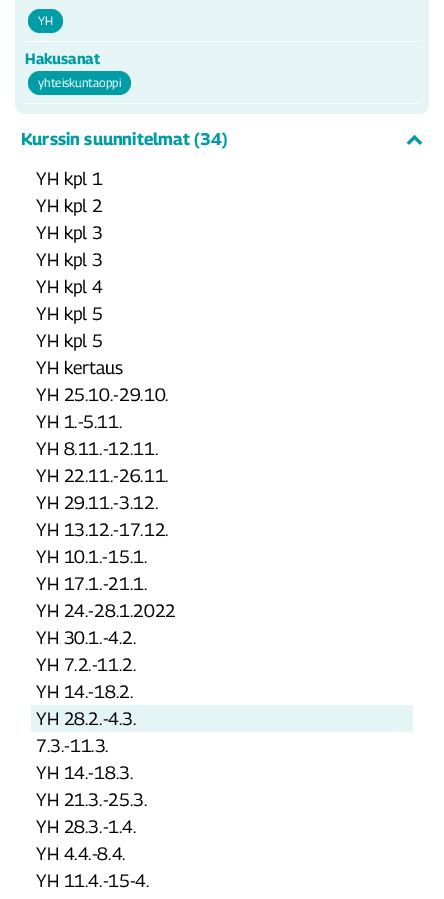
%!PS
<< /PageSize [444 899] >> setpagedevice
/roundrect { 5 dict begin { /r /h /w /y /x } { exch def } forall
  x r add y moveto x w add y 2 copy h add r arct x w add y h add x 1 index r arct
  x y h add x y r arct x y 2 copy exch w add exch r arct closepath end } def
/picture { 5 dict begin { /h /w /y /x /name } { exch def } forall
  gsave x y translate w h scale
  w h 8 [w 0 0 h 0 0] name (r) file false 3 colorimage grestore end } def
0 899 translate 1 -1 scale
4 setmiterlimit
1 setgray
0 0 444 899 rectfill
0.898 0.961 0.965 setrgbcolor
15 -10 414 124 10 roundrect fill
1 setgray
25 41 394 1 rectfill
0 0.616 0.651 setrgbcolor
28 9 35 24 12 roundrect fill
/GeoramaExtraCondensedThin-Regular [12 0 0 -12 0 0] selectfont
1 setgray
38 25 moveto (YH) show
25 103 394 1 rectfill
/GeoramaExtraCondensedThin-Bold [15 0 0 -15 0 0] selectfont
0 0.616 0.651 setrgbcolor
25 64 moveto (Hakusanat) show
28 71 103 24 12 roundrect fill
/GeoramaExtraCondensedThin-Regular [12 0 0 -12 0 0] selectfont
1 setgray
38 87 moveto (yhteiskuntaoppi) show
/GeoramaExtraCondensedThin-Bold [17 0 0 -17 0 0] selectfont
0 0.616 0.651 setrgbcolor
21 145 moveto (Kurssin suunnitelmat \(34\)) show
(img1.rgb) 406 135 17 10 picture
/GeoramaExtraCondensedThin-Regular [18 0 0 -18 0 0] selectfont
0 setgray
36 185 moveto (YH kpl 1) show
36 212 moveto (YH kpl 2) show
36 239 moveto (YH kpl 3) show
36 266 moveto (YH kpl 3) show
36 293 moveto (YH kpl 4) show
36 320 moveto (YH kpl 5) show
36 347 moveto (YH kpl 5) show
36 374 moveto (YH kertaus) show
36 401 moveto (YH 25.10.-29.10.) show
36 428 moveto (YH 1.-5.11.) show
36 455 moveto (YH 8.11.-12.11.) show
36 482 moveto (YH 22.11.-26.11.) show
36 509 moveto (YH 29.11.-3.12.) show
36 536 moveto (YH 13.12.-17.12.) show
36 563 moveto (YH 10.1.-15.1.) show
36 590 moveto (YH 17.1.-21.1.) show
36 617 moveto (YH 24.-28.1.2022) show
36 644 moveto (YH 30.1.-4.2.) show
36 671 moveto (YH 7.2.-11.2.) show
36 698 moveto (YH 14.-18.2.) show
0.898 0.961 0.965 setrgbcolor
31 705 382 27 rectfill
0 setgray
36 725 moveto (YH 28.2.-4.3.) show
36 752 moveto (7.3.-11.3.) show
36 779 moveto (YH 14.-18.3.) show
36 806 moveto (YH 21.3.-25.3.) show
36 833 moveto (YH 28.3.-1.4.) show
36 860 moveto (YH 4.4.-8.4.) show
36 887 moveto (YH 11.4.-15-4.) show
showpage
